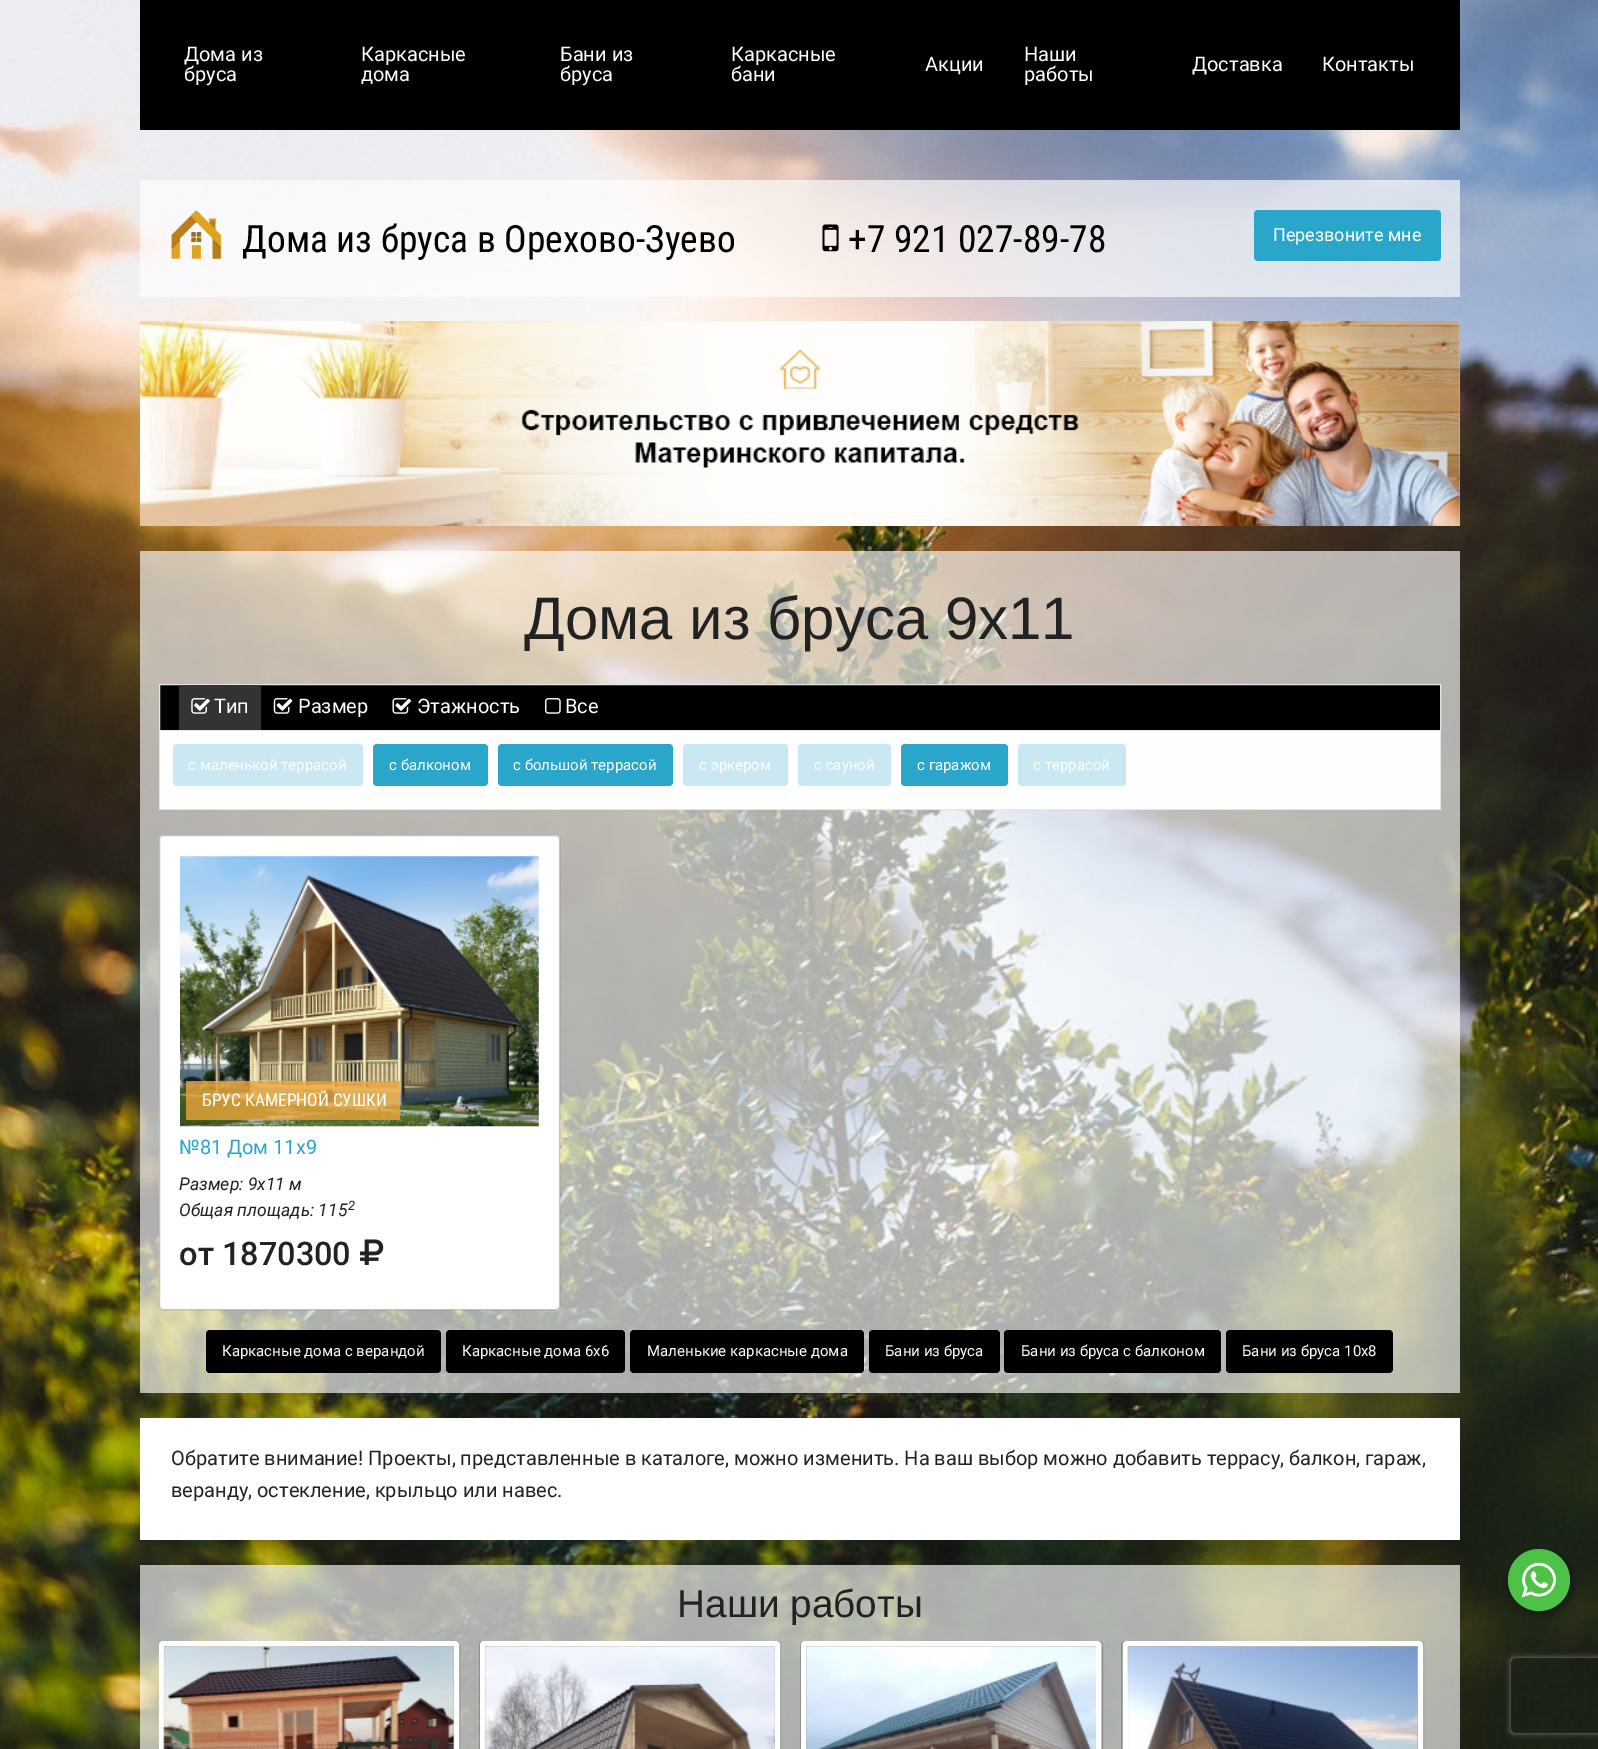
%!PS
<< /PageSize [1598 1749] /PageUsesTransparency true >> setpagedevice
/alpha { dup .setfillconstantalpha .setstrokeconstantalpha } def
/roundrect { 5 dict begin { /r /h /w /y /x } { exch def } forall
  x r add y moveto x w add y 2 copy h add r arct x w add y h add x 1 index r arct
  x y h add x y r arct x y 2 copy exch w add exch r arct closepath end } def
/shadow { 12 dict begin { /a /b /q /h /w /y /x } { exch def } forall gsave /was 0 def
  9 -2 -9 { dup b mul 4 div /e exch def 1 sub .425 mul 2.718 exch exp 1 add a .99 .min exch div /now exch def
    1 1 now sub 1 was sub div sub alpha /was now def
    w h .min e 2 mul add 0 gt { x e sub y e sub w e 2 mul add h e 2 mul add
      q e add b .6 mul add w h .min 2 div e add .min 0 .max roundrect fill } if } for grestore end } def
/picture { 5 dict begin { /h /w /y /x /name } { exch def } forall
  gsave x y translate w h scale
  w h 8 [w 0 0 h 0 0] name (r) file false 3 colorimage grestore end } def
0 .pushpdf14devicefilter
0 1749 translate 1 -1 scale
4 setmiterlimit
1 setgray
0 0 1598 1749 rectfill
(img1.rgb) 0 0 1598 1749 picture
0 setgray
140 0 1320 130 rectfill
/Roboto-Regular [20 0 0 -20 0 0] selectfont
1 setgray
184 61 moveto (Дома из) show
184 81 moveto (бруса) show
361 61 moveto (Каркасные) show
361 81 moveto (дома) show
560 61 moveto (Бани из) show
560 81 moveto (бруса) show
731 61 moveto (Каркасные) show
731 81 moveto (бани) show
925 71 moveto (Акции) show
1024 61 moveto (Наши) show
1024 81 moveto (работы) show
1192 71 moveto (Доставка) show
1322 71 moveto (Контакты) show
0.65 alpha
140 180 1320 117 rectfill
1 alpha
(img2.rgb) 171 210 51 49 picture
/RobotoCondensed-Regular [37.5 0 0 -37.5 0 0] selectfont
0 setgray
242 252 moveto (Дома из бруса в Орехово-Зуево) show
(img3.rgb) 822 224 17 28 picture
848 252 moveto (+7 921 027-89-78) show
0.169 0.651 0.796 setrgbcolor
1254 210 187 51 4 roundrect fill
/Roboto-Regular [18 0 0 -18 0 0] selectfont
1 setgray
1273 241 moveto (Перезвоните мне) show
(img4.rgb) 140 321 1320 205 picture
0.19 alpha
1459 321 1 205 rectfill
0.65 alpha
140 551 1320 842 rectfill
/LiberationSans-Regular [60 0 0 -60 0 0] selectfont
1 alpha
0.133 setgray
524 639 moveto (Дома из бруса 9х11) show
0 setgray
newpath 159.5 684.5 moveto 1440.5 684.5 lineto 1440.5 730.5 lineto 159.5 730.5 lineto closepath gsave fill grestore
0.902 setgray
stroke
0.2 setgray
179 685 82 45 rectfill
(img5.rgb) 191 698 19 16 picture
/Roboto-Regular [20 0 0 -20 0 0] selectfont
1 setgray
214 713 moveto (Тип) show
(img6.rgb) 273 698 20 16 picture
298 713 moveto (Размер) show
(img7.rgb) 392 698 19 16 picture
417 713 moveto (Этажность) show
(img8.rgb) 545 698 16 16 picture
565 713 moveto (Все) show
0.996 setgray
160 731 1280 78 rectfill
0.902 setgray
1440 731 1 79 rectfill
159 809 1282 1 rectfill
159 731 1 79 rectfill
0.788 0.91 0.945 setrgbcolor
173 744 190 42 4 roundrect fill
/Roboto-Regular [15 0 0 -15 0 0] selectfont
1 setgray
188 770 moveto (с маленькой террасой) show
0.169 0.651 0.796 setrgbcolor
373 744 115 42 4 roundrect fill
1 setgray
389 770 moveto (с балконом) show
0.169 0.651 0.796 setrgbcolor
498 744 175 42 4 roundrect fill
1 setgray
513 770 moveto (с большой террасой) show
0.788 0.91 0.945 setrgbcolor
683 744 105 42 4 roundrect fill
1 setgray
699 770 moveto (с эркером) show
0.788 0.91 0.945 setrgbcolor
798 744 93 42 4 roundrect fill
1 setgray
814 770 moveto (с сауной) show
0.169 0.651 0.796 setrgbcolor
901 744 107 42 4 roundrect fill
1 setgray
917 770 moveto (с гаражом) show
0.788 0.91 0.945 setrgbcolor
1018 744 108 42 4 roundrect fill
1 setgray
1033 770 moveto (с террасой) show
159 835 401 475 4 roundrect fill
0.25 alpha
0.039 setgray
159.5 835.5 400 474 3.5 roundrect stroke
1 alpha
(img9.rgb) 180 856 359 271 picture
0.8 alpha
0.91 0.647 0.227 setrgbcolor
186 1081 214 39 rectfill
/RobotoCondensed-Regular [17.5 0 0 -17.5 0 0] selectfont
1 alpha
1 setgray
202 1106 moveto (БРУС КАМЕРНОЙ СУШКИ) show
/Roboto-Regular [20 0 0 -20 0 0] selectfont
0.169 0.651 0.796 setrgbcolor
179 1154 moveto (№81 Дом 11х9) show
/Roboto-Italic [17.5 0 0 -17.5 0 0] selectfont
0.133 setgray
179 1190 moveto (Размер: 9х11 м) show
179 1216 moveto (Общая площадь: 115) show
/Roboto-Italic [13 0 0 -13 0 0] selectfont
348 1210 moveto (2) show
/Roboto-Medium [32.5 0 0 -32.5 0 0] selectfont
179 1265 moveto (от 1870300) show
(img10.rgb) 360 1239 24 26 picture
0 setgray
206 1330 235 43 4 roundrect fill
/Roboto-Regular [15 0 0 -15 0 0] selectfont
1 setgray
222 1356 moveto (Каркасные дома с верандой) show
0 setgray
446 1330 179 43 4 roundrect fill
1 setgray
462 1356 moveto (Каркасные дома 6х6) show
0 setgray
630 1330 234 43 4 roundrect fill
1 setgray
647 1356 moveto (Маленькие каркасные дома) show
0 setgray
869 1330 131 43 4 roundrect fill
1 setgray
885 1356 moveto (Бани из бруса) show
0 setgray
1004 1330 217 43 4 roundrect fill
1 setgray
1021 1356 moveto (Бани из бруса с балконом) show
0 setgray
1226 1330 167 43 4 roundrect fill
1 setgray
1242 1356 moveto (Бани из бруса 10х8) show
140 1418 1320 122 rectfill
/Roboto-Regular [20 0 0 -20 0 0] selectfont
0.133 setgray
171 1465 moveto (Обратите внимание! Проекты, представленные в каталоге, можно изменить. На ваш выбор можно добавить террасу, балкон, гараж,) show
171 1497 moveto (веранду, остекление, крыльцо или навес.) show
0.65 alpha
1 setgray
140 1565 1320 184 rectfill
/LiberationSans-Regular [38.75 0 0 -38.75 0 0] selectfont
1 alpha
0.133 setgray
677 1617 moveto (Наши работы) show
gsave
159 1641 1282 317 rectclip
0.2 alpha
0.039 setgray
158.5 1640.5 301 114 4.5 roundrect stroke
grestore
0.996 setgray
5 setlinewidth
161.5 1643.5 295 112 1.5 roundrect stroke
(img11.rgb) 163 1646 292 103 picture
gsave
159 1641 1282 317 rectclip
0.2 alpha
0.039 setgray
1 setlinewidth
479.5 1640.5 301 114 4.5 roundrect stroke
grestore
482.5 1643.5 295 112 1.5 roundrect stroke
(img12.rgb) 484 1646 291 103 picture
gsave
159 1641 1282 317 rectclip
0.2 alpha
0.039 setgray
1 setlinewidth
800.5 1640.5 302 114 4.5 roundrect stroke
grestore
803.5 1643.5 295 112 1.5 roundrect stroke
(img13.rgb) 806 1646 290 103 picture
gsave
159 1641 1282 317 rectclip
0.2 alpha
0.039 setgray
1 setlinewidth
1121.5 1640.5 302 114 4.5 roundrect stroke
grestore
1125.5 1643.5 295 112 1.5 roundrect stroke
(img14.rgb) 1127 1646 291 103 picture
0 setgray
1510 1551 63 63 31.5 4 0.4 shadow
0.302 0.761 0.278 setrgbcolor
newpath 1539 1580 31 0 360 arc closepath fill
(img15.rgb) 1521 1562 35 36 picture
gsave
newpath 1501 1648 moveto 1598 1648 lineto 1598 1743 lineto 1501 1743 lineto closepath 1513.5 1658 moveto 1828.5 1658 lineto 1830 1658 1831 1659 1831 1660.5 curveto 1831 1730.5 lineto 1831 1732 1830 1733 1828.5 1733 curveto 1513.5 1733 lineto 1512 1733 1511 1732 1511 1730.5 curveto 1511 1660.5 lineto 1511 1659 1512 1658 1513.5 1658 curveto closepath eoclip newpath
0.502 setgray
1511 1658 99 75 2.5 3 1 shadow
grestore
.poppdf14devicefilter showpage
